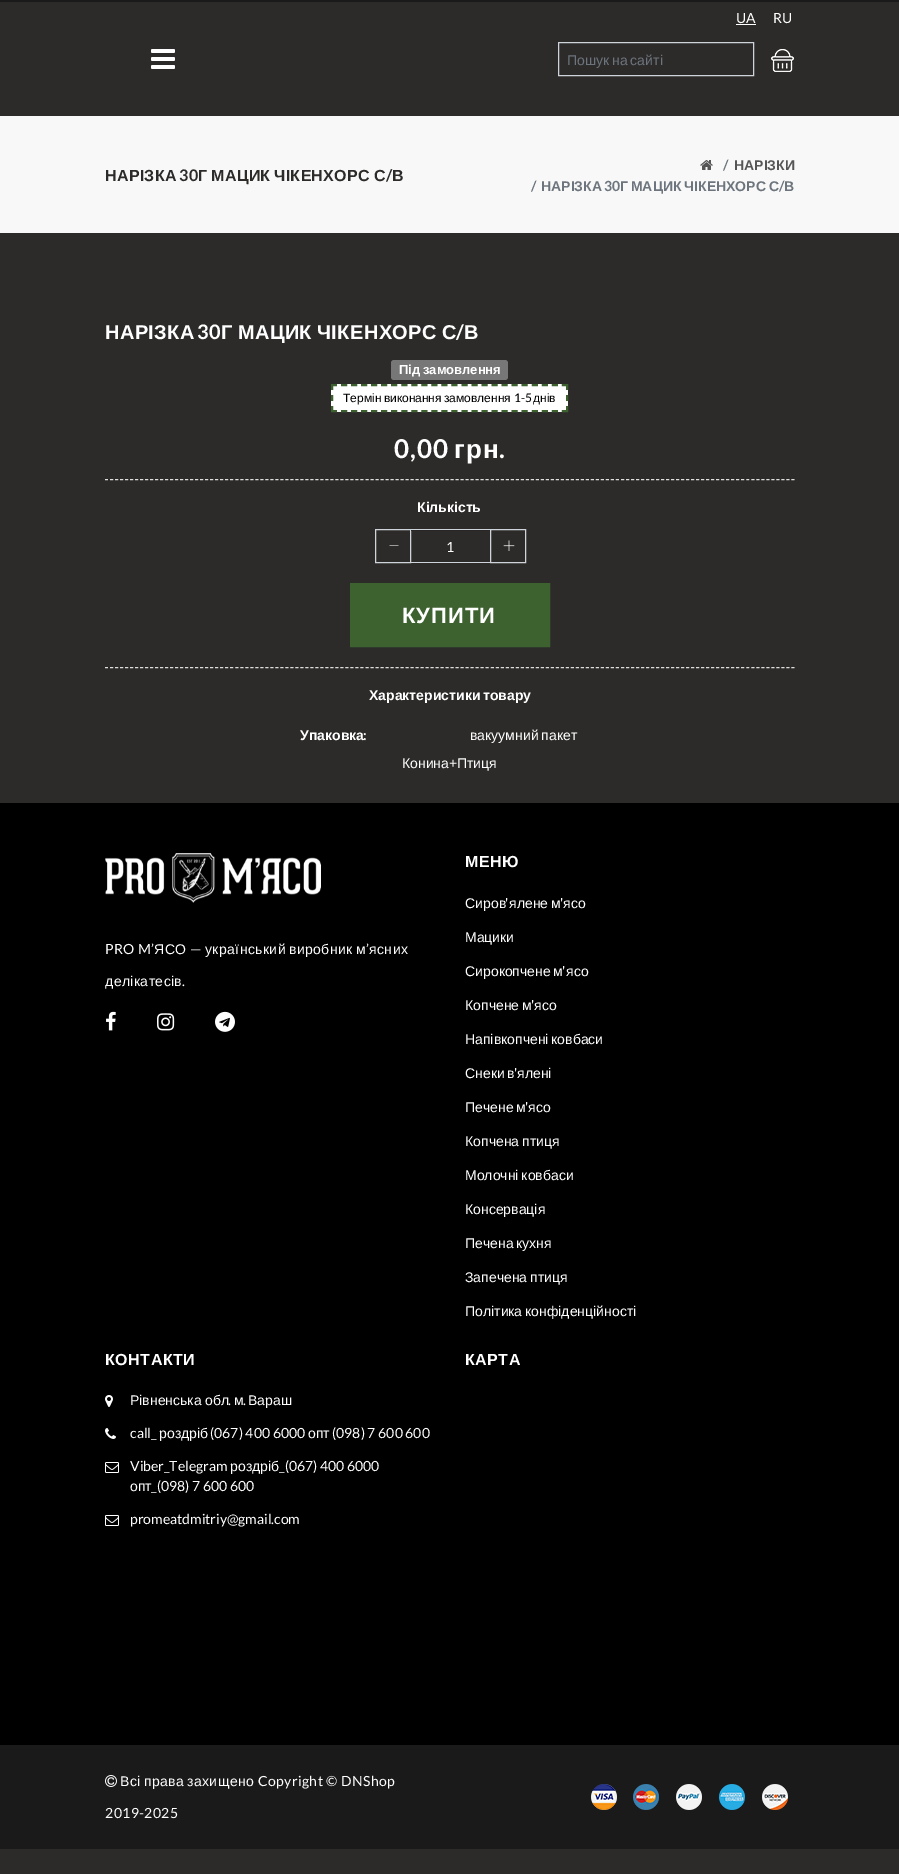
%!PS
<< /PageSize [899 1874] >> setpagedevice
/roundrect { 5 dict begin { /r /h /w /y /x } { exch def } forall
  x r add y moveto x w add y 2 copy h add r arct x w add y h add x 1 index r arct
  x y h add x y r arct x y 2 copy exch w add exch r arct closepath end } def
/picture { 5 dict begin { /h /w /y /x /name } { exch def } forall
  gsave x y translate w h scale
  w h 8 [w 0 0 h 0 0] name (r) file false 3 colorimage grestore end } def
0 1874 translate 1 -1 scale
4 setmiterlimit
0.173 0.169 0.165 setrgbcolor
0 0 899 1874 rectfill
0.106 0.102 0.102 setrgbcolor
0 0 899 2 rectfill
/Lato-Regular [14 0 0 -14 0 0] selectfont
1 setgray
736 23 moveto (UA) show
736 24 20 1 rectfill
773 23 moveto (RU) show
(img1.rgb) 151 49 24 20 picture
0.161 0.157 0.153 setrgbcolor
559 43 194 1 rectfill
0.808 0.831 0.855 setrgbcolor
558.5 42.5 195 33 rectstroke
/LiberationSans-Regular [14 0 0 -14 0 0] selectfont
0.424 0.459 0.49 setrgbcolor
567 65 moveto -1 0 32 (Пошук на сайті) widthshow
(img2.rgb) 771 49 23 23 picture
0.973 setgray
0 116 899 117 rectfill
/LiberationSans-Bold [16 0 0 -16 0 0] selectfont
0.173 0.169 0.165 setrgbcolor
105 181 moveto 0.3 0 (НАРІЗКА) ashow
/Lato-Bold [16 0 0 -16 0 0] selectfont
179 181 moveto 0.3 0 (30) ashow
/LiberationSans-Bold [16 0 0 -16 0 0] selectfont
198 181 moveto -1 0 32 0.3 0 (Г МАЦИК ЧІКЕНХОРС С) awidthshow
/Lato-Bold [16 0 0 -16 0 0] selectfont
386 181 moveto 0.3 0 (/) ashow
/LiberationSans-Bold [16 0 0 -16 0 0] selectfont
392 181 moveto 0.3 0 (В) ashow
(img3.rgb) 700 160 13 10 picture
/Lato-Bold [14 0 0 -14 0 0] selectfont
0.424 0.459 0.49 setrgbcolor
723 170 moveto (/) show
/LiberationSans-Bold [14 0 0 -14 0 0] selectfont
0.333 setgray
734 170 moveto (НАРІЗКИ) show
/Lato-Bold [14 0 0 -14 0 0] selectfont
0.424 0.459 0.49 setrgbcolor
531 191 moveto (/) show
/LiberationSans-Bold [14 0 0 -14 0 0] selectfont
541 191 moveto (НАРІЗКА) show
/Lato-Bold [14 0 0 -14 0 0] selectfont
604 191 moveto (30) show
/LiberationSans-Bold [14 0 0 -14 0 0] selectfont
620 191 moveto -1 0 32 (Г МАЦИК ЧІКЕНХОРС С) widthshow
/Lato-Bold [14 0 0 -14 0 0] selectfont
779 191 moveto (/) show
/LiberationSans-Bold [14 0 0 -14 0 0] selectfont
784 191 moveto (В) show
/LiberationSans-Bold [20 0 0 -20 0 0] selectfont
1 setgray
105 339 moveto 0.4 0 (НАРІЗКА) ashow
/Lato-Bold [20 0 0 -20 0 0] selectfont
197 339 moveto 0.4 0 (30) ashow
/LiberationSans-Bold [20 0 0 -20 0 0] selectfont
221 339 moveto -1 0 32 0.4 0 (Г МАЦИК ЧІКЕНХОРС С) awidthshow
/Lato-Bold [20 0 0 -20 0 0] selectfont
456 339 moveto 0.4 0 (/) ashow
/LiberationSans-Bold [20 0 0 -20 0 0] selectfont
464 339 moveto 0.4 0 (В) ashow
0.467 setgray
391 360 117 20 3 roundrect fill
/LiberationSans-Bold [13 0 0 -13 0 0] selectfont
1 setgray
399 374 moveto -1 0 32 (Під замовлення) widthshow
331 384 237 28 rectfill
0.239 0.384 0.184 setrgbcolor
2 setlinewidth
[6 4.04] 0 setdash
newpath 331 385 moveto 568 385 lineto stroke
[] 0 setdash
newpath 567 384 moveto 567 390 lineto 567 395 moveto 567 401 lineto 567 406 moveto 567 412 lineto stroke
[6 4.04] 0 setdash
newpath 331 411 moveto 568 411 lineto stroke
[] 0 setdash
newpath 332 384 moveto 332 390 lineto 332 395 moveto 332 401 lineto 332 406 moveto 332 412 lineto stroke
/LiberationSans-Regular [12 0 0 -12 0 0] selectfont
0 setgray
343 402 moveto -1 0 32 (Термін виконання замовлення) widthshow
/Lato-Regular [12 0 0 -12 0 0] selectfont
514 402 moveto (1-5) show
/LiberationSans-Regular [12 0 0 -12 0 0] selectfont
533 402 moveto (днів) show
/Lato-Bold [26 0 0 -26 0 0] selectfont
1 setgray
394 458 moveto 1 0 (0,00) ashow
/LiberationSans-Bold [26 0 0 -26 0 0] selectfont
454 458 moveto 1 0 (грн) ashow
/Lato-Bold [26 0 0 -26 0 0] selectfont
499 458 moveto 1 0 (.) ashow
0.867 setgray
1 setlinewidth
[3 2.01] 0 setdash
newpath 105 479.5 moveto 795 479.5 lineto stroke
/LiberationSans-Bold [14 0 0 -14 0 0] selectfont
1 setgray
417 512 moveto (Кількість) show
0.808 0.831 0.855 setrgbcolor
[] 0 setdash
375.5 529.5 35 33 rectstroke
1 setgray
newpath 398.5 545.5 moveto 398.5 546 lineto 389.5 546 lineto 389.5 545.5 lineto closepath fill
0.161 0.157 0.153 setrgbcolor
411 530 79 1 rectfill
0.808 0.831 0.855 setrgbcolor
410 529 80 1 rectfill
410 562 80 1 rectfill
/Lato-Regular [14 0 0 -14 0 0] selectfont
1 setgray
446 552 moveto (1) show
0.808 0.831 0.855 setrgbcolor
490.5 529.5 35 33 rectstroke
(img4.rgb) 503 540 12 11 picture
gsave newpath 352 585 moveto 548 585 lineto 548 645 lineto 352 645 lineto closepath clip newpath
<< /ShadingType 2 /ColorSpace /DeviceRGB /Coords [658 822 896 408] /Extend [true true] /Function << /FunctionType 3 /Domain [0 1] /Functions [<< /FunctionType 2 /Domain [0 1] /C0 [0.239 0.384 0.184] /C1 [0.239 0.384 0.184] /N 1 >> << /FunctionType 2 /Domain [0 1] /C0 [0.173 0.169 0.165] /C1 [0.173 0.169 0.165] /N 1 >>] /Bounds [0.5] /Encode [0 1 0 1] >> >> shfill grestore
0.239 0.384 0.184 setrgbcolor
2 setlinewidth
351 584 198 62 rectstroke
/LiberationSans-Bold [22 0 0 -22 0 0] selectfont
1 setgray
402 623 moveto 1 0 (КУПИТИ) ashow
0.867 setgray
1 setlinewidth
[3 2.01] 0 setdash
newpath 105 667.5 moveto 795 667.5 lineto stroke
/LiberationSans-Bold [14 0 0 -14 0 0] selectfont
1 setgray
369 700 moveto -1 0 32 (Характеристики товару) widthshow
300 740 moveto (Упаковка) show
/Lato-Bold [14 0 0 -14 0 0] selectfont
363 740 moveto (:) show
/LiberationSans-Regular [14 0 0 -14 0 0] selectfont
470 740 moveto -1 0 32 (вакуумний пакет) widthshow
402 768 moveto (Конина) show
/Lato-Regular [14 0 0 -14 0 0] selectfont
449 768 moveto (+) show
/LiberationSans-Regular [14 0 0 -14 0 0] selectfont
457 768 moveto (Птиця) show
0 setgray
0 803 899 942 rectfill
(img5.rgb) 105 853 216 50 picture
/Lato-Regular [14 0 0 -14 0 0] selectfont
1 setgray
105 954 moveto 0.4 0 (PRO M’) ashow
/LiberationSans-Regular [14 0 0 -14 0 0] selectfont
154 954 moveto 0.4 0 (ЯСО) ashow
/Lato-Regular [14 0 0 -14 0 0] selectfont
190 954 moveto 0.4 0 (—) ashow
/LiberationSans-Regular [14 0 0 -14 0 0] selectfont
205 954 moveto 0.4 0 (український) ashow
289 954 moveto 0.4 0 (виробник) ashow
356 954 moveto 0.4 0 (м) ashow
/Lato-Regular [14 0 0 -14 0 0] selectfont
366 954 moveto 0.4 0 (’) ashow
/LiberationSans-Regular [14 0 0 -14 0 0] selectfont
369 954 moveto 0.4 0 (ясних) ashow
105 986 moveto 0.4 0 (делікатесів) ashow
/Lato-Regular [14 0 0 -14 0 0] selectfont
182 986 moveto 0.4 0 (.) ashow
(img6.rgb) 106 1011 10 20 picture
(img7.rgb) 157 1013 18 18 picture
(img8.rgb) 215 1011 20 21 picture
/LiberationSans-Bold [16 0 0 -16 0 0] selectfont
465 867 moveto 0.5 0 (МЕНЮ) ashow
/LiberationSans-Regular [14 0 0 -14 0 0] selectfont
465 908 moveto (Сиров) show
/Lato-Regular [14 0 0 -14 0 0] selectfont
505 908 moveto (') show
/LiberationSans-Regular [14 0 0 -14 0 0] selectfont
509 908 moveto -1 0 32 (ялене м) widthshow
/Lato-Regular [14 0 0 -14 0 0] selectfont
560 908 moveto (') show
/LiberationSans-Regular [14 0 0 -14 0 0] selectfont
563 908 moveto (ясо) show
465 942 moveto (Мацики) show
465 976 moveto -1 0 32 (Сирокопчене м) widthshow
/Lato-Regular [14 0 0 -14 0 0] selectfont
562 976 moveto (') show
/LiberationSans-Regular [14 0 0 -14 0 0] selectfont
566 976 moveto (ясо) show
465 1010 moveto -1 0 32 (Копчене м) widthshow
/Lato-Regular [14 0 0 -14 0 0] selectfont
531 1010 moveto (') show
/LiberationSans-Regular [14 0 0 -14 0 0] selectfont
534 1010 moveto (ясо) show
465 1044 moveto -1 0 32 (Напівкопчені ковбаси) widthshow
465 1078 moveto -1 0 32 (Снеки в) widthshow
/Lato-Regular [14 0 0 -14 0 0] selectfont
514 1078 moveto (') show
/LiberationSans-Regular [14 0 0 -14 0 0] selectfont
517 1078 moveto (ялені) show
465 1112 moveto -1 0 32 (Печене м) widthshow
/Lato-Regular [14 0 0 -14 0 0] selectfont
525 1112 moveto (') show
/LiberationSans-Regular [14 0 0 -14 0 0] selectfont
528 1112 moveto (ясо) show
465 1146 moveto -1 0 32 (Копчена птиця) widthshow
465 1180 moveto -1 0 32 (Молочні ковбаси) widthshow
465 1214 moveto (Консервація) show
465 1248 moveto -1 0 32 (Печена кухня) widthshow
465 1282 moveto -1 0 32 (Запечена птиця) widthshow
465 1316 moveto -1 0 32 (Політика конфіденційності) widthshow
/LiberationSans-Bold [16 0 0 -16 0 0] selectfont
105 1365 moveto 0.5 0 (КОНТАКТИ) ashow
(img9.rgb) 105 1395 8 12 picture
/LiberationSans-Regular [14 0 0 -14 0 0] selectfont
130 1405 moveto (Рівненська обл) show
/Lato-Regular [14 0 0 -14 0 0] selectfont
228 1405 moveto (.) show
/LiberationSans-Regular [14 0 0 -14 0 0] selectfont
234 1405 moveto (м) show
/Lato-Regular [14 0 0 -14 0 0] selectfont
243 1405 moveto (.) show
/LiberationSans-Regular [14 0 0 -14 0 0] selectfont
248 1405 moveto (Вараш) show
(img10.rgb) 105 1428 11 11 picture
/Lato-Regular [14 0 0 -14 0 0] selectfont
130 1438 moveto (call_) show
/LiberationSans-Regular [14 0 0 -14 0 0] selectfont
159 1438 moveto (роздріб) show
/Lato-Regular [14 0 0 -14 0 0] selectfont
210 1438 moveto (\(067\) 400 6000) show
/LiberationSans-Regular [14 0 0 -14 0 0] selectfont
308 1438 moveto (опт) show
/Lato-Regular [14 0 0 -14 0 0] selectfont
332 1438 moveto (\(098\) 7 600 600) show
(img11.rgb) 105 1462 14 11 picture
130 1471 moveto (Viber_Telegram) show
/LiberationSans-Regular [14 0 0 -14 0 0] selectfont
230 1471 moveto (роздріб) show
/Lato-Regular [14 0 0 -14 0 0] selectfont
279 1471 moveto (_\(067\) 400 6000) show
/LiberationSans-Regular [14 0 0 -14 0 0] selectfont
130 1491 moveto (опт) show
/Lato-Regular [14 0 0 -14 0 0] selectfont
151 1491 moveto (_\(098\) 7 600 600) show
(img11.rgb) 105 1515 14 11 picture
130 1524 moveto (promeatdmitriy@gmail.com) show
/LiberationSans-Bold [16 0 0 -16 0 0] selectfont
465 1365 moveto 0.5 0 (КАРТА) ashow
0.106 0.102 0.102 setrgbcolor
0 1745 899 104 rectfill
(img12.rgb) 105 1775 12 12 picture
/LiberationSans-Regular [14 0 0 -14 0 0] selectfont
1 setgray
120 1786 moveto 0.4 0 (Всі) ashow
144 1786 moveto 0.4 0 (права) ashow
187 1786 moveto 0.4 0 (захищено) ashow
/Lato-Regular [14 0 0 -14 0 0] selectfont
258 1786 moveto 0.4 0 (Copyright © DNShop) ashow
105 1818 moveto 0.4 0 (2019-2025) ashow
(img13.rgb) 591 1784 26 26 picture
(img14.rgb) 633 1784 26 26 picture
(img15.rgb) 676 1784 26 26 picture
(img16.rgb) 719 1784 26 26 picture
(img17.rgb) 762 1784 26 26 picture
showpage
